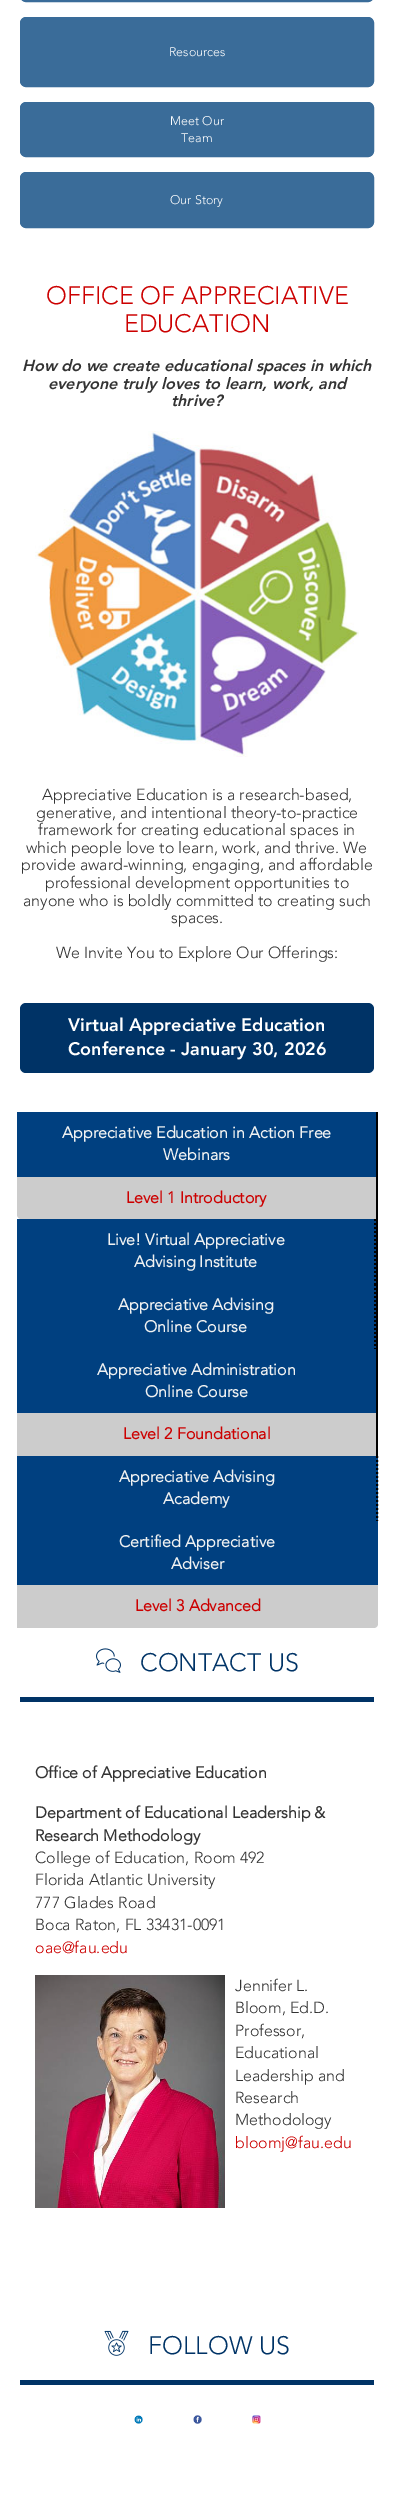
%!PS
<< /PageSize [394 2510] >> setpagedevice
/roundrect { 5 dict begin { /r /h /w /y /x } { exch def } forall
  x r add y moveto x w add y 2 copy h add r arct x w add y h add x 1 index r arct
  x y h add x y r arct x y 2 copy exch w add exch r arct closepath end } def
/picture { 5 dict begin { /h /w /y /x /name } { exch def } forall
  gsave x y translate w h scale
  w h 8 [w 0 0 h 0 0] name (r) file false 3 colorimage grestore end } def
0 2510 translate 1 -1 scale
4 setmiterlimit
1 setgray
0 0 394 2510 rectfill
0.227 0.424 0.6 setrgbcolor
20.5 -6.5 353 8 5.5 roundrect gsave fill grestore
stroke
20.5 17.5 353 69 5.5 roundrect gsave fill grestore
stroke
/Avenir-Light [12.5 0 0 -12.5 0 0] selectfont
1 setgray
169 56 moveto (Resources) show
0.227 0.424 0.6 setrgbcolor
20.5 102.5 353 54 5.5 roundrect gsave fill grestore
stroke
1 setgray
170 125 moveto (Meet Our) show
181 142 moveto (Team) show
0.227 0.424 0.6 setrgbcolor
20.5 172.5 353 55 5.5 roundrect gsave fill grestore
stroke
1 setgray
170 204 moveto (Our Story) show
/Avenir-Light [25 0 0 -25 0 0] selectfont
0.8 0 0 setrgbcolor
46 304 moveto (OFFICE OF APPRECIATIVE) show
124 332 moveto (EDUCATION) show
/Avenir-BlackItalic [16 0 0 -16 0 0] selectfont
0.2 setgray
22 371 moveto (How do we create educational spaces in which) show
48 389 moveto (everyone truly loves to learn, work, and) show
171 406 moveto (thrive?) show
(img1.rgb) 35 431 324 326 picture
/Avenir-Light [16 0 0 -16 0 0] selectfont
42 800 moveto (Appreciative Education is a research-based,) show
36 818 moveto (generative, and intentional theory-to-practice) show
38 835 moveto (framework for creating educational spaces in) show
26 853 moveto (which people love to learn, work, and thrive. We) show
21 870 moveto (provide award-winning, engaging, and affordable) show
45 888 moveto (professional development opportunities to) show
23 906 moveto (anyone who is boldly committed to creating such) show
171 923 moveto (spaces.) show
56 958 moveto (We Invite You to Explore Our Offerings:) show
0 0.2 0.4 setrgbcolor
20 1003 354 70 6 roundrect fill
/Avenir-Black [18 0 0 -18 0 0] selectfont
1 setgray
68 1031 moveto (Virtual Appreciative Education) show
68 1055 moveto (Conference - January 30, 2026) show
0.004 setgray
376 1112 2 344 rectfill
0 0.251 0.502 setrgbcolor
17 1112 359 65 rectfill
/Avenir-Bold [16 0 0 -16 0 0] selectfont
0.945 0.949 0.949 setrgbcolor
62 1138 moveto (Appreciative Education in Action Free) show
163 1160 moveto (Webinars) show
0.8 setgray
newpath 17 1177 moveto 376 1177 lineto 376 1219 lineto 21 1219 lineto 19 1219 17 1217 17 1215 curveto closepath fill
0.8 0 0 setrgbcolor
126 1203 moveto (Level 1 Introductory) show
0 0.251 0.502 setrgbcolor
17 1219 359 194 rectfill
0 setgray
2 setlinewidth
[2 2] 0 setdash
newpath 375 1219 moveto 375 1284 lineto stroke
0.945 0.949 0.949 setrgbcolor
107 1245 moveto (Live! Virtual Appreciative) show
134 1267 moveto (Advising Institute) show
0 setgray
newpath 375 1284 moveto 375 1349 lineto stroke
0.945 0.949 0.949 setrgbcolor
118 1310 moveto (Appreciative Advising) show
144 1332 moveto (Online Course) show
97 1375 moveto (Appreciative Administration) show
145 1397 moveto (Online Course) show
0.8 setgray
17 1413 359 43 rectfill
0.8 0 0 setrgbcolor
123 1439 moveto (Level 2 Foundational) show
0 0.251 0.502 setrgbcolor
17 1456 361 129 rectfill
0 setgray
newpath 377 1456 moveto 377 1521 lineto stroke
0.945 0.949 0.949 setrgbcolor
119 1482 moveto (Appreciative Advising) show
163 1504 moveto (Academy) show
119 1547 moveto (Certified Appreciative) show
171 1569 moveto (Adviser) show
0.8 setgray
newpath 17 1585 moveto 378 1585 lineto 378 1624 lineto 378 1626 376 1628 374 1628 curveto 17 1628 lineto closepath fill
0.8 0 0 setrgbcolor
135 1611 moveto (Level 3 Advanced) show
(img2.rgb) 96 1648 25 25 picture
/Avenir-Light [25 0 0 -25 0 0] selectfont
0 0.2 0.4 setrgbcolor
140 1671 moveto (CONTACT US) show
20 1697 354 5 rectfill
/Avenir-Bold [16 0 0 -16 0 0] selectfont
0.2 setgray
35 1778 moveto (Office of Appreciative Education) show
35 1818 moveto (Department of Educational Leadership &) show
35 1841 moveto (Research Methodology) show
/Avenir-Light [16 0 0 -16 0 0] selectfont
35 1863 moveto (College of Education, Room 492) show
35 1885 moveto (Florida Atlantic University) show
35 1908 moveto (777 Glades Road) show
35 1930 moveto (Boca Raton, FL 33431-0091) show
0.8 0 0 setrgbcolor
35 1953 moveto (oae@fau.edu) show
(img3.rgb) 35 1975 190 233 picture
0.2 setgray
235 1991 moveto (Jennifer L.) show
235 2013 moveto (Bloom, Ed.D.) show
235 2036 moveto (Professor,) show
235 2058 moveto (Educational) show
235 2081 moveto (Leadership and) show
235 2103 moveto (Research) show
235 2125 moveto (Methodology) show
0.8 0 0 setrgbcolor
235 2148 moveto (bloomj@fau.edu) show
(img4.rgb) 104 2330 25 26 picture
/Avenir-Light [25 0 0 -25 0 0] selectfont
0 0.2 0.4 setrgbcolor
148 2354 moveto (FOLLOW US) show
20 2380 354 5 rectfill
(img5.rgb) 134 2415 9 9 picture
(img6.rgb) 193 2415 9 9 picture
(img7.rgb) 252 2415 9 9 picture
showpage
